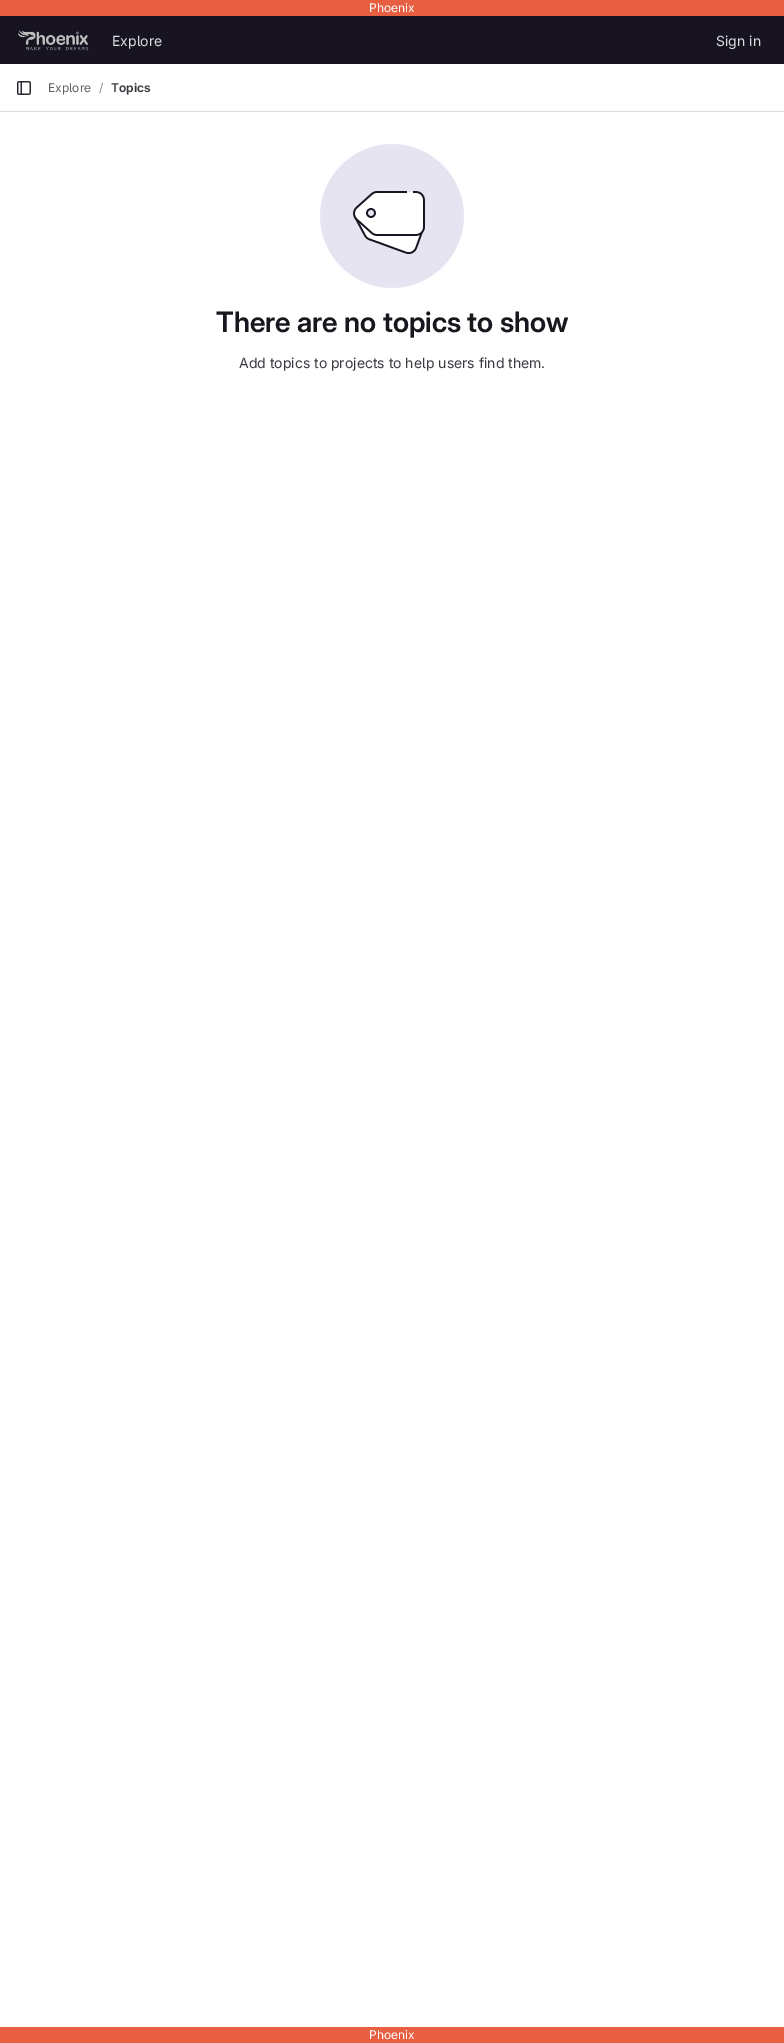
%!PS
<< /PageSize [784 2043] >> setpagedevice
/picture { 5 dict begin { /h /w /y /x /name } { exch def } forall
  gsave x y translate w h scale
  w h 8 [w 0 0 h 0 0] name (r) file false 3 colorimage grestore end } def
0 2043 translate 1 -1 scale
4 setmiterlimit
1 setgray
0 0 784 2043 rectfill
0.906 0.369 0.251 setrgbcolor
0 0 784 16 rectfill
/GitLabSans-Regular [12 0 0 -12 0 0] selectfont
1 setgray
369 12 moveto (Phoenix) show
0.09 0.075 0.129 setrgbcolor
0 16 784 48 rectfill
(img1.rgb) 18 30 71 21 picture
/GitLabSans-Regular [14 0 0 -14 0 0] selectfont
0.863 0.863 0.871 setrgbcolor
112 46 moveto (Explore) show
716 46 moveto (Sign in) show
0 111 784 1 rectfill
(img2.rgb) 17 81 14 14 picture
/GitLabSans-Regular [12 0 0 -12 0 0] selectfont
0.384 0.38 0.408 setrgbcolor
48 92 moveto (Explore) show
0.537 0.533 0.553 setrgbcolor
99 92 moveto (/) show
/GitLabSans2-SemiBold [12 0 0 -12 0 0] selectfont
0.227 0.22 0.247 setrgbcolor
111 92 moveto (Topics) show
(img3.rgb) 320 144 144 144 picture
/GitLabSans-SemiBold [28 0 0 -28 0 0] selectfont
0.094 0.09 0.114 setrgbcolor
216 332 moveto (There are no topics to show) show
/GitLabSans-Regular [14 0 0 -14 0 0] selectfont
0.227 0.22 0.247 setrgbcolor
239 368 moveto (Add topics to projects to help users find them.) show
0.906 0.369 0.251 setrgbcolor
0 2027 784 16 rectfill
/GitLabSans-Regular [12 0 0 -12 0 0] selectfont
1 setgray
369 2039 moveto (Phoenix) show
showpage
